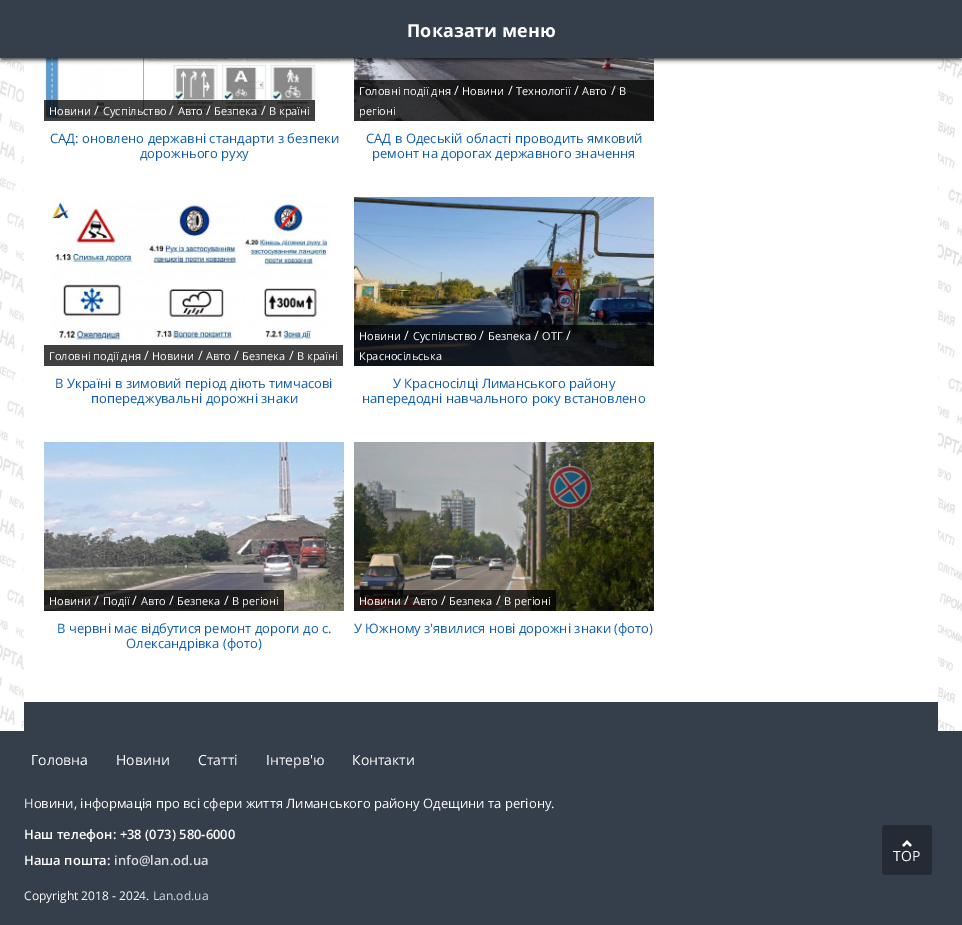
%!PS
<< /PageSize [962 925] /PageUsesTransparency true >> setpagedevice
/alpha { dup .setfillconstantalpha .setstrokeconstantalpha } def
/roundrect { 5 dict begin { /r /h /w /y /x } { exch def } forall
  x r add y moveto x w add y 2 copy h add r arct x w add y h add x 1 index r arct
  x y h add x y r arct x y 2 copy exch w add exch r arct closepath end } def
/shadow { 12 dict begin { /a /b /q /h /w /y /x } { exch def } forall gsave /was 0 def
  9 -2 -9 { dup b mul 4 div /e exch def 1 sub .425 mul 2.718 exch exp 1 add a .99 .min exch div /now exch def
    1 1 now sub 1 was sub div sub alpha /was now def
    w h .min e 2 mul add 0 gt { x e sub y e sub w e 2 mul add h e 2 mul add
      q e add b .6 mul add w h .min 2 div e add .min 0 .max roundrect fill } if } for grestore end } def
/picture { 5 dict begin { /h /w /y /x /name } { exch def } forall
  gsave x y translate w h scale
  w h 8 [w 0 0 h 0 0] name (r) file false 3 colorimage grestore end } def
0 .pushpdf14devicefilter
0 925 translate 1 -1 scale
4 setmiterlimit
1 setgray
0 0 962 925 rectfill
(img1.rgb) 0 58 962 673 picture
24 58 914 644 rectfill
(img2.rgb) 44 58 296 63 picture
(img3.rgb) 354 58 300 63 picture
0 setgray
1 4 960 56 0 2 0.75 shadow
0.208 0.243 0.294 setrgbcolor
0 0 962 58 rectfill
/OpenSans-Bold [18 0 0 -18 0 0] selectfont
1 setgray
407 37 moveto (Показати меню) show
0.75 alpha
0 setgray
44 100 271 21 rectfill
/OpenSans-Regular [11 0 0 -11 0 0] selectfont
1 alpha
1 setgray
49 115 moveto (Новини) show
/OpenSans-Regular [13 0 0 -13 0 0] selectfont
94 115 moveto (/) show
/OpenSans-Regular [11 0 0 -11 0 0] selectfont
103 115 moveto (Суспільство) show
/OpenSans-Regular [13 0 0 -13 0 0] selectfont
169 115 moveto (/) show
/OpenSans-Regular [11 0 0 -11 0 0] selectfont
178 115 moveto (Авто) show
/OpenSans-Regular [13 0 0 -13 0 0] selectfont
206 115 moveto (/) show
/OpenSans-Regular [11 0 0 -11 0 0] selectfont
214 115 moveto (Безпека) show
/OpenSans-Regular [13 0 0 -13 0 0] selectfont
261 115 moveto (/) show
/OpenSans-Regular [11 0 0 -11 0 0] selectfont
269 115 moveto (В країні) show
/OpenSans-Regular [13 0 0 -13 0 0] selectfont
0.059 0.361 0.675 setrgbcolor
50 143 moveto (САД: оновлено державні стандарти з безпеки) show
gsave
44 131 300 30 rectclip
140 158 moveto (дорожнього руху) show
grestore
0.75 alpha
0 setgray
354 80 300 41 rectfill
/OpenSans-Regular [11 0 0 -11 0 0] selectfont
1 alpha
1 setgray
359 95 moveto (Головні події дня) show
/OpenSans-Regular [13 0 0 -13 0 0] selectfont
454 95 moveto (/) show
/OpenSans-Regular [11 0 0 -11 0 0] selectfont
462 95 moveto (Новини) show
/OpenSans-Regular [13 0 0 -13 0 0] selectfont
508 95 moveto (/) show
/OpenSans-Regular [11 0 0 -11 0 0] selectfont
516 95 moveto (Технології) show
/OpenSans-Regular [13 0 0 -13 0 0] selectfont
574 95 moveto (/) show
/OpenSans-Regular [11 0 0 -11 0 0] selectfont
582 95 moveto (Авто) show
/OpenSans-Regular [13 0 0 -13 0 0] selectfont
611 95 moveto (/) show
/OpenSans-Regular [11 0 0 -11 0 0] selectfont
619 95 moveto (В) show
359 115 moveto (регіоні) show
/OpenSans-Regular [13 0 0 -13 0 0] selectfont
0.059 0.361 0.675 setrgbcolor
366 143 moveto (САД в Одеській області проводить ямковий) show
gsave
354 131 300 30 rectclip
372 158 moveto (ремонт на дорогах державного значення) show
grestore
0.251 setgray
44 345 299 21 rectfill
/OpenSans-Regular [11 0 0 -11 0 0] selectfont
1 setgray
49 360 moveto (Головні події дня) show
/OpenSans-Regular [13 0 0 -13 0 0] selectfont
144 360 moveto (/) show
/OpenSans-Regular [11 0 0 -11 0 0] selectfont
152 360 moveto (Новини) show
/OpenSans-Regular [13 0 0 -13 0 0] selectfont
198 360 moveto (/) show
/OpenSans-Regular [11 0 0 -11 0 0] selectfont
206 360 moveto (Авто) show
/OpenSans-Regular [13 0 0 -13 0 0] selectfont
234 360 moveto (/) show
/OpenSans-Regular [11 0 0 -11 0 0] selectfont
242 360 moveto (Безпека) show
/OpenSans-Regular [13 0 0 -13 0 0] selectfont
289 360 moveto (/) show
/OpenSans-Regular [11 0 0 -11 0 0] selectfont
297 360 moveto (В країні) show
(img4.rgb) 51 197 279 145 picture
/OpenSans-Regular [13 0 0 -13 0 0] selectfont
0.059 0.361 0.675 setrgbcolor
55 388 moveto (В Україні в зимовий період діють тимчасові) show
gsave
44 376 300 30 rectclip
91 403 moveto (попереджувальні дорожні знаки) show
grestore
(img5.rgb) 354 197 300 169 picture
0.75 alpha
0 setgray
354 325 300 41 rectfill
/OpenSans-Regular [11 0 0 -11 0 0] selectfont
1 alpha
1 setgray
359 340 moveto (Новини) show
/OpenSans-Regular [13 0 0 -13 0 0] selectfont
404 340 moveto (/) show
/OpenSans-Regular [11 0 0 -11 0 0] selectfont
413 340 moveto (Суспільство) show
/OpenSans-Regular [13 0 0 -13 0 0] selectfont
479 340 moveto (/) show
/OpenSans-Regular [11 0 0 -11 0 0] selectfont
488 340 moveto (Безпека) show
/OpenSans-Regular [13 0 0 -13 0 0] selectfont
534 340 moveto (/) show
/OpenSans-Regular [11 0 0 -11 0 0] selectfont
542 340 moveto (ОТГ) show
/OpenSans-Regular [13 0 0 -13 0 0] selectfont
566 340 moveto (/) show
/OpenSans-Regular [11 0 0 -11 0 0] selectfont
359 360 moveto (Красносільська) show
/OpenSans-Regular [13 0 0 -13 0 0] selectfont
0.059 0.361 0.675 setrgbcolor
393 388 moveto (У Красносілці Лиманського району) show
gsave
354 376 300 30 rectclip
362 403 moveto (напередодні навчального року встановлено) show
grestore
(img6.rgb) 44 442 300 169 picture
0.75 alpha
0 setgray
44 590 240 21 rectfill
/OpenSans-Regular [11 0 0 -11 0 0] selectfont
1 alpha
1 setgray
49 605 moveto (Новини) show
/OpenSans-Regular [13 0 0 -13 0 0] selectfont
94 605 moveto (/) show
/OpenSans-Regular [11 0 0 -11 0 0] selectfont
103 605 moveto (Події) show
/OpenSans-Regular [13 0 0 -13 0 0] selectfont
132 605 moveto (/) show
/OpenSans-Regular [11 0 0 -11 0 0] selectfont
141 605 moveto (Авто) show
/OpenSans-Regular [13 0 0 -13 0 0] selectfont
169 605 moveto (/) show
/OpenSans-Regular [11 0 0 -11 0 0] selectfont
177 605 moveto (Безпека) show
/OpenSans-Regular [13 0 0 -13 0 0] selectfont
224 605 moveto (/) show
/OpenSans-Regular [11 0 0 -11 0 0] selectfont
232 605 moveto (В регіоні) show
/OpenSans-Regular [13 0 0 -13 0 0] selectfont
0.059 0.361 0.675 setrgbcolor
57 633 moveto (В червні має відбутися ремонт дороги до с.) show
126 648 moveto (Олександрівка \(фото\)) show
(img7.rgb) 354 442 300 169 picture
0.75 alpha
0 setgray
354 590 202 21 rectfill
/OpenSans-Regular [11 0 0 -11 0 0] selectfont
1 alpha
1 setgray
359 605 moveto (Новини) show
/OpenSans-Regular [13 0 0 -13 0 0] selectfont
404 605 moveto (/) show
/OpenSans-Regular [11 0 0 -11 0 0] selectfont
413 605 moveto (Авто) show
/OpenSans-Regular [13 0 0 -13 0 0] selectfont
441 605 moveto (/) show
/OpenSans-Regular [11 0 0 -11 0 0] selectfont
449 605 moveto (Безпека) show
/OpenSans-Regular [13 0 0 -13 0 0] selectfont
496 605 moveto (/) show
/OpenSans-Regular [11 0 0 -11 0 0] selectfont
504 605 moveto (В регіоні) show
gsave
354 621 300 15 rectclip
/OpenSans-Regular [13 0 0 -13 0 0] selectfont
0.059 0.361 0.675 setrgbcolor
354 633 moveto (У Южному з'явилися нові дорожні знаки \(фото\)) show
grestore
0.208 0.243 0.294 setrgbcolor
24 702 914 29 rectfill
0 731 962 194 rectfill
/OpenSans-Regular [14 0 0 -14 0 0] selectfont
1 setgray
31 765 moveto (Головна) show
116 765 moveto (Новини) show
198 765 moveto (Статті) show
266 765 moveto (Інтерв'ю) show
352 765 moveto (Контакти) show
/OpenSans-Regular [13 0 0 -13 0 0] selectfont
24 808 moveto (Новини, інформація про всі сфери життя Лиманського району Одещини та регіону.) show
/OpenSans-SemiBold [13 0 0 -13 0 0] selectfont
24 839 moveto (Наш телефон: +38 \(073\) 580-6000) show
24 865 moveto (Наша пошта:) show
0.843 0.847 0.859 setrgbcolor
114 865 moveto (info@lan.od.ua) show
/OpenSans-Regular [12 0 0 -12 0 0] selectfont
1 setgray
24 900 moveto (Copyright 2018 - 2024.) show
0.843 0.847 0.859 setrgbcolor
153 900 moveto (Lan.od.ua) show
0.145 0.169 0.208 setrgbcolor
882 825 50 50 3 roundrect fill
(img8.rgb) 902 840 10 7 picture
/OpenSans-Regular [14 0 0 -14 0 0] selectfont
1 setgray
893 861 moveto (TOP) show
.poppdf14devicefilter showpage
